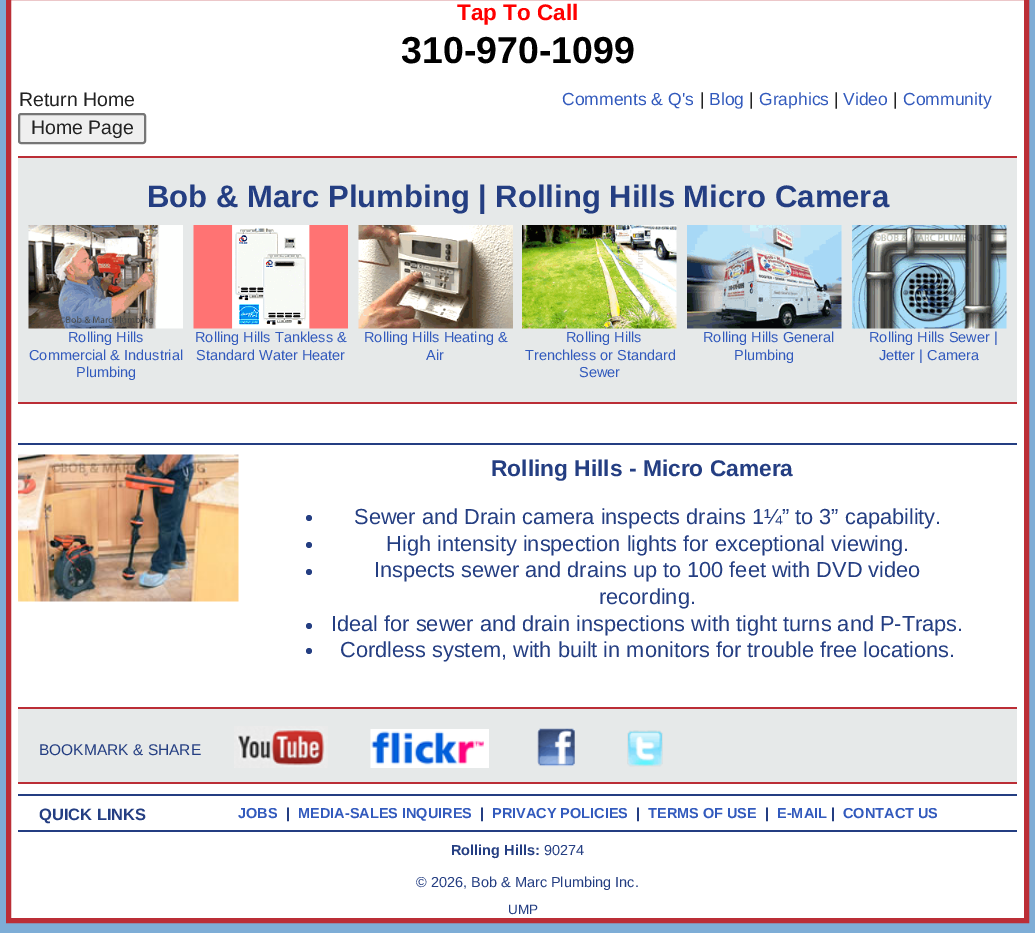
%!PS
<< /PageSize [1035 933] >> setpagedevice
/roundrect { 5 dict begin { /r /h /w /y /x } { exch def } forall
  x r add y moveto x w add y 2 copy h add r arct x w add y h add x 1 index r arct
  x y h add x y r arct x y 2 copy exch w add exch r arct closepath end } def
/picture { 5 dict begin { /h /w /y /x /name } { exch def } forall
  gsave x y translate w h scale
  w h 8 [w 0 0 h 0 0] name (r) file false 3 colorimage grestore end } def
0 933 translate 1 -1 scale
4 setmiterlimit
0.494 0.678 0.839 setrgbcolor
0 0 1035 933 rectfill
1 setgray
newpath 8.5 -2.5 moveto 1026.5 -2.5 lineto 1026.5 920.5 lineto 8.5 920.5 lineto closepath gsave fill grestore
0.733 0.18 0.212 setrgbcolor
5 setlinewidth
stroke
/LiberationSans-Bold [22.5 0 0 -22.5 0 0] selectfont
1 0 0 setrgbcolor
457 20 moveto (Tap To Call) show
/LiberationSans-Bold [37.5 0 0 -37.5 0 0] selectfont
0 setgray
401 63 moveto (310-970-1099) show
/LiberationSans-Regular [19.5 0 0 -19.5 0 0] selectfont
0.133 setgray
19 106 moveto (Return Home) show
0.937 setgray
19 114 126 29 2 roundrect gsave fill grestore
0.463 setgray
2 setlinewidth
stroke
0.133 setgray
31 134 moveto (Home Page) show
/LiberationSans-Regular [17.5 0 0 -17.5 0 0] selectfont
0.196 0.353 0.741 setrgbcolor
562 105 moveto (Comments & Q's) show
0.133 setgray
700 105 moveto (|) show
0.196 0.353 0.741 setrgbcolor
709 105 moveto (Blog) show
0.133 setgray
749 105 moveto (|) show
0.196 0.353 0.741 setrgbcolor
759 105 moveto (Graphics) show
0.133 setgray
834 105 moveto (|) show
0.196 0.353 0.741 setrgbcolor
843 105 moveto (Video) show
0.133 setgray
893 105 moveto (|) show
0.196 0.353 0.741 setrgbcolor
903 105 moveto (Community) show
0.902 0.914 0.914 setrgbcolor
18 158 999 244 rectfill
0.733 0.18 0.212 setrgbcolor
18 156 999 2 rectfill
18 402 999 2 rectfill
/LiberationSans-Bold [31.05 0 0 -31.05 0 0] selectfont
0.141 0.243 0.51 setrgbcolor
147 207 moveto (Bob & Marc Plumbing | Rolling Hills Micro Camera) show
(img1.rgb) 28 225 155 104 picture
/LiberationSans-Regular [14.5 0 0 -14.5 0 0] selectfont
0.196 0.353 0.741 setrgbcolor
68 342 moveto (Rolling Hills) show
29 360 moveto (Commercial & Industrial) show
76 377 moveto (Plumbing) show
(img2.rgb) 193 225 155 104 picture
195 342 moveto (Rolling Hills Tankless &) show
196 360 moveto (Standard Water Heater) show
(img3.rgb) 358 225 155 104 picture
364 342 moveto (Rolling Hills Heating &) show
426 360 moveto (Air) show
(img4.rgb) 522 225 155 104 picture
566 342 moveto (Rolling Hills) show
525 360 moveto (Trenchless or Standard) show
579 377 moveto (Sewer) show
(img5.rgb) 687 225 155 104 picture
703 342 moveto (Rolling Hills General) show
734 360 moveto (Plumbing) show
(img6.rgb) 852 225 155 104 picture
869 342 moveto (Rolling Hills Sewer |) show
879 360 moveto (Jetter | Camera) show
0.141 0.243 0.51 setrgbcolor
18 443 999 2 rectfill
(img7.rgb) 18 454 221 148 picture
/LiberationSans-Bold [22.75 0 0 -22.75 0 0] selectfont
491 476 moveto (Rolling Hills - Micro Camera) show
newpath 309 518 3 0 360 arc closepath fill
/LiberationSans-Regular [21.75 0 0 -21.75 0 0] selectfont
354 524 moveto (Sewer and Drain camera inspects drains 1¼” to 3” capability.) show
newpath 309 545 3 0 360 arc closepath fill
386 551 moveto (High intensity inspection lights for exceptional viewing.) show
newpath 309 572 3 0 360 arc closepath fill
374 577 moveto (Inspects sewer and drains up to 100 feet with DVD video) show
599 604 moveto (recording.) show
newpath 309 626 3 0 360 arc closepath fill
331 631 moveto (Ideal for sewer and drain inspections with tight turns and P-Traps.) show
newpath 309 651 3 0 360 arc closepath fill
340 657 moveto (Cordless system, with built in monitors for trouble free locations.) show
0.902 0.914 0.914 setrgbcolor
18 709 999 73 rectfill
0.733 0.18 0.212 setrgbcolor
18 707 999 2 rectfill
18 782 999 2 rectfill
/LiberationSans-Regular [15.5 0 0 -15.5 0 0] selectfont
0.141 0.243 0.51 setrgbcolor
39 755 moveto (BOOKMARK & SHARE) show
(img8.rgb) 234 726 94 42 picture
(img9.rgb) 370 729 119 39 picture
(img10.rgb) 537 728 38 39 picture
(img11.rgb) 627 730 36 37 picture
18 794 999 2 rectfill
18 830 999 2 rectfill
/LiberationSans-Bold [16.5 0 0 -16.5 0 0] selectfont
39 820 moveto (QUICK LINKS) show
/LiberationSans-Bold [14.5 0 0 -14.5 0 0] selectfont
0.196 0.353 0.741 setrgbcolor
238 818 moveto (JOBS) show
0.141 0.243 0.51 setrgbcolor
286 818 moveto (|) show
0.196 0.353 0.741 setrgbcolor
298 818 moveto (MEDIA-SALES INQUIRES) show
0.141 0.243 0.51 setrgbcolor
480 818 moveto (|) show
0.196 0.353 0.741 setrgbcolor
492 818 moveto (PRIVACY POLICIES) show
0.141 0.243 0.51 setrgbcolor
636 818 moveto (|) show
0.196 0.353 0.741 setrgbcolor
648 818 moveto (TERMS OF USE) show
0.141 0.243 0.51 setrgbcolor
765 818 moveto (|) show
0.196 0.353 0.741 setrgbcolor
777 818 moveto (E-MAIL) show
0.141 0.243 0.51 setrgbcolor
831 818 moveto (|) show
0.196 0.353 0.741 setrgbcolor
843 818 moveto (CONTACT US) show
0.141 0.243 0.51 setrgbcolor
451 855 moveto (Rolling Hills:) show
/LiberationSans-Regular [14.5 0 0 -14.5 0 0] selectfont
544 855 moveto (90274) show
416 887 moveto (© 2026, Bob & Marc Plumbing Inc.) show
/LiberationSans-Regular [13.5 0 0 -13.5 0 0] selectfont
508 914 moveto (UMP) show
showpage
